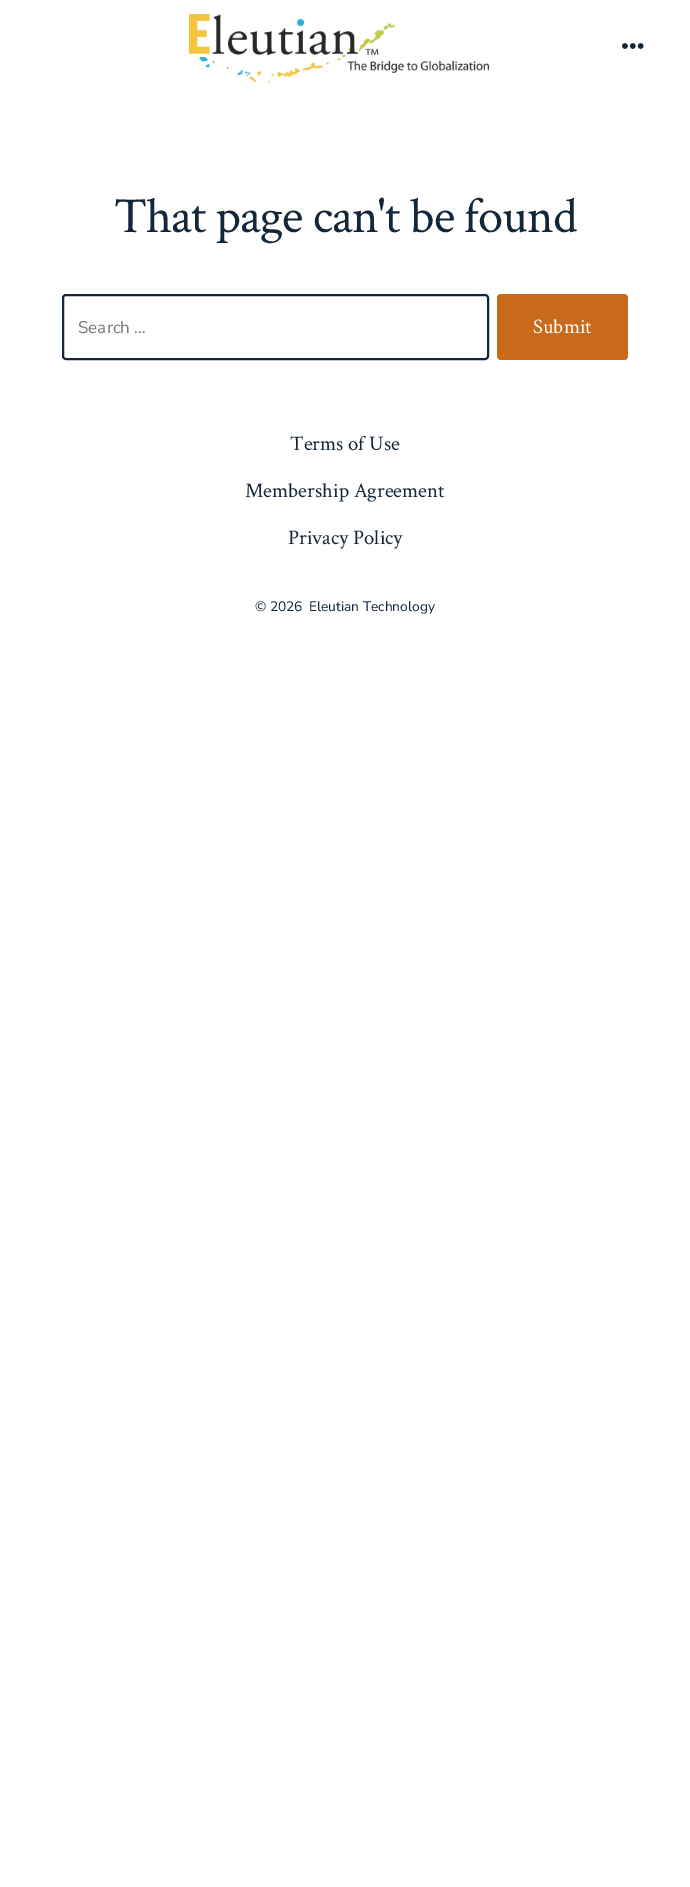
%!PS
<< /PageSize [690 1887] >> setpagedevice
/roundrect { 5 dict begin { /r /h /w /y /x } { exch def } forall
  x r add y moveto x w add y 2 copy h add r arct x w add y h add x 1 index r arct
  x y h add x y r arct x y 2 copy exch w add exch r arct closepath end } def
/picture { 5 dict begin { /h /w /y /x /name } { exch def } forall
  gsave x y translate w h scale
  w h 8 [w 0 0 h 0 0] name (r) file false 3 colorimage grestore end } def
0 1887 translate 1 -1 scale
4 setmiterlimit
1 setgray
0 0 690 1887 rectfill
(img1.rgb) 189 14 300 69 picture
(img2.rgb) 622 43 22 6 picture
/CrimsonText-Regular [50.5 0 0 -50.5 0 0] selectfont
0.075 0.149 0.227 setrgbcolor
114 232 moveto -1 0 (That page can't be found) ashow
2 setlinewidth
63 295 425 64 3 roundrect stroke
/NunitoSans-Regular [17 0 0 -17 0 0] selectfont
0.471 setgray
78 333 moveto (Search …) show
0.784 0.416 0.098 setrgbcolor
497 294 131 66 4 roundrect fill
/CrimsonText-Regular [20.75 0 0 -20.75 0 0] selectfont
1 setgray
533 333 moveto (Submit) show
0.075 0.149 0.227 setrgbcolor
290 450 moveto (Terms of Use) show
245 497 moveto (Membership Agreement) show
288 544 moveto (Privacy Policy) show
/NunitoSans-Regular [13.75 0 0 -13.75 0 0] selectfont
255 611 moveto (© 2026) show
309 611 moveto (Eleutian Technology) show
showpage
